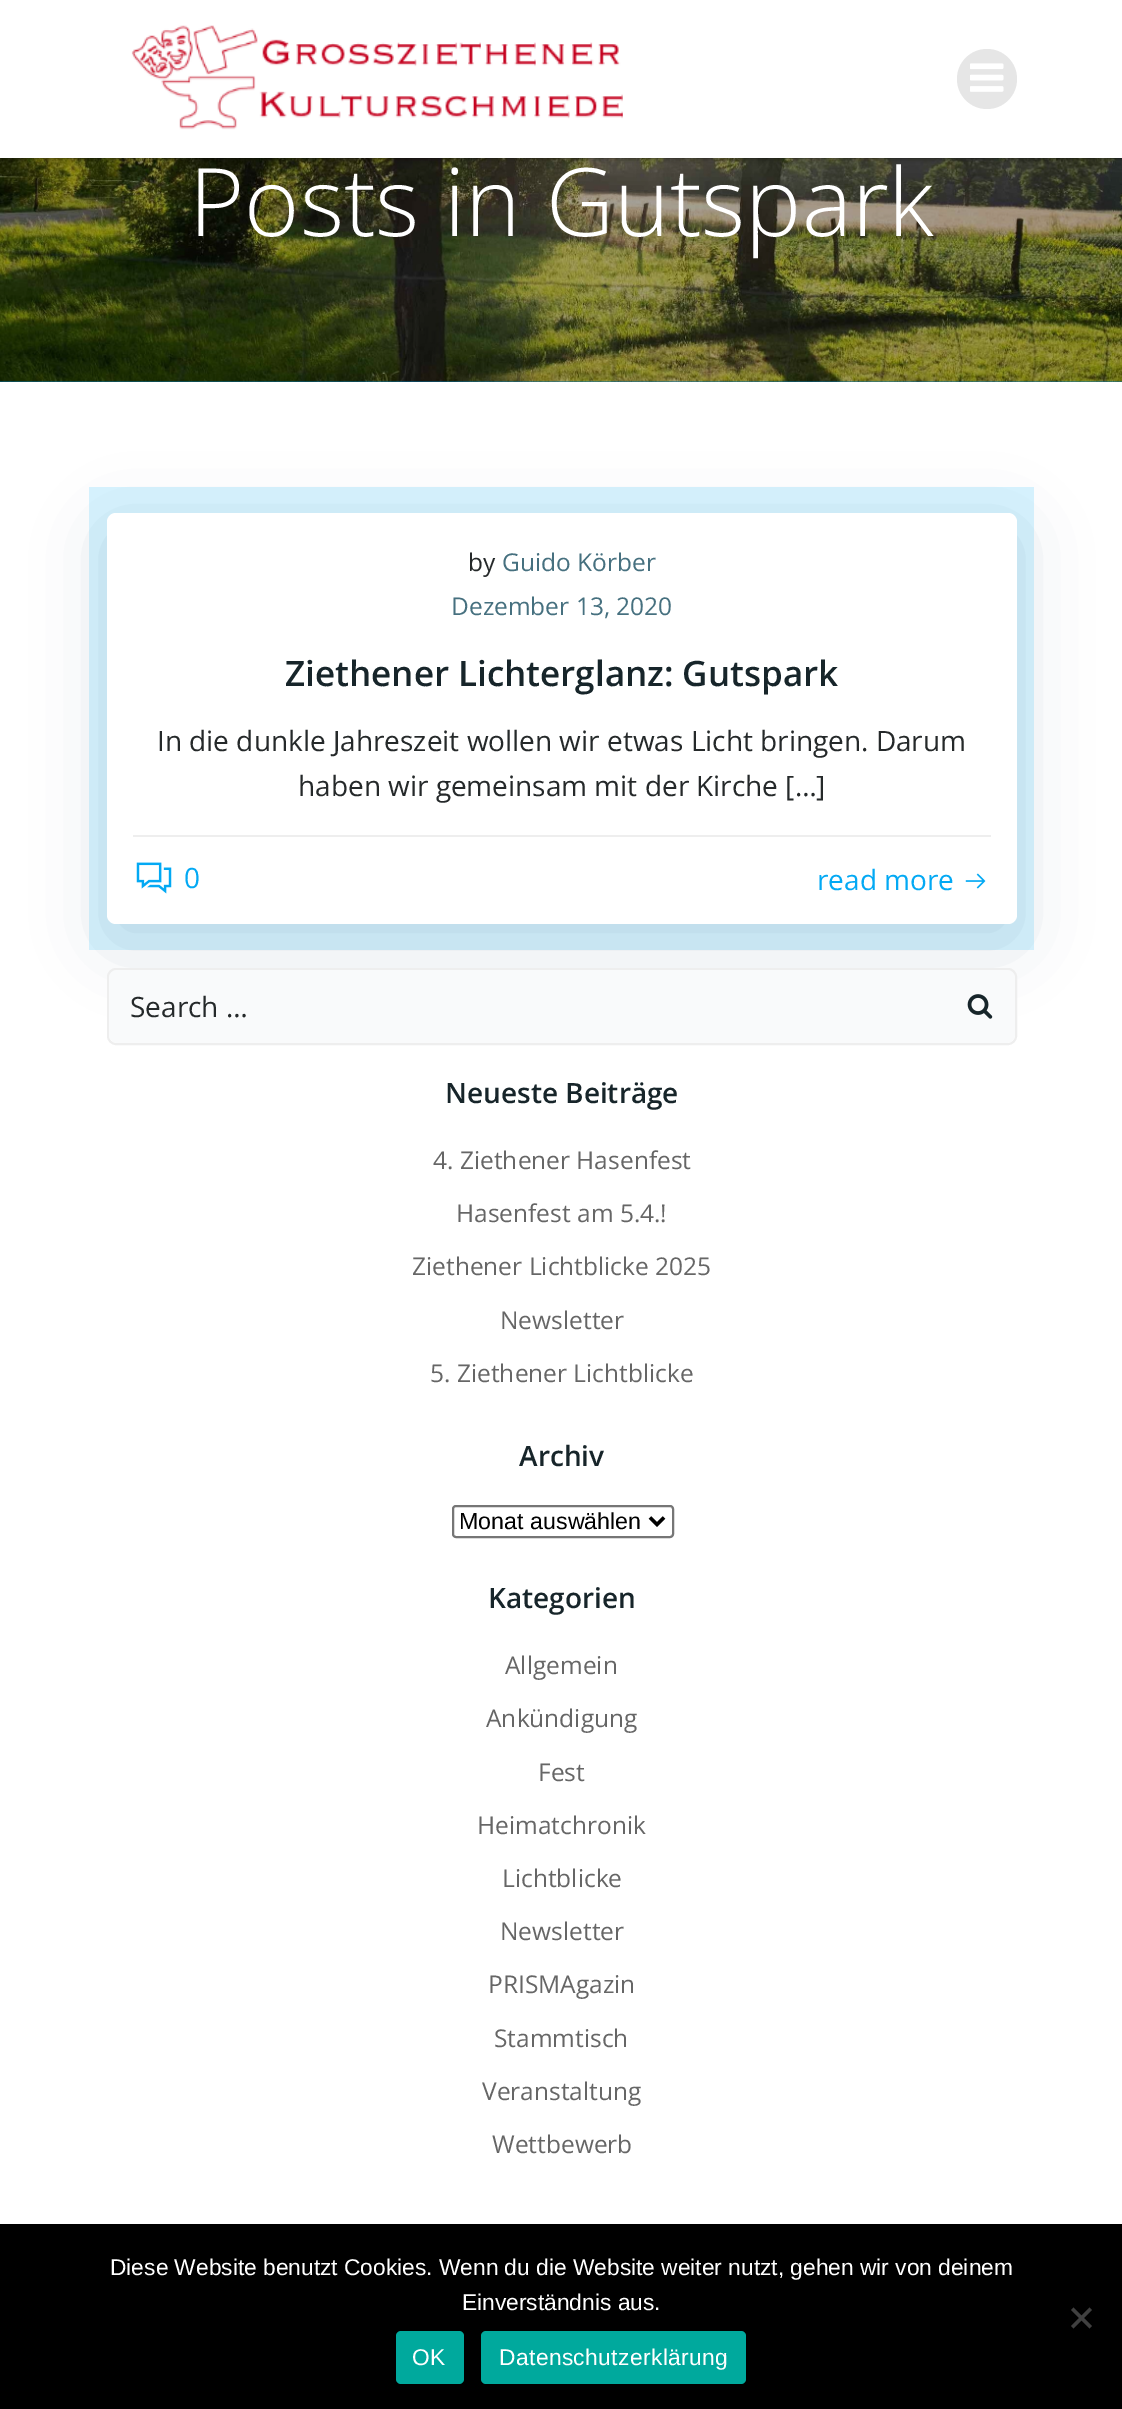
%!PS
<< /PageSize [1122 2409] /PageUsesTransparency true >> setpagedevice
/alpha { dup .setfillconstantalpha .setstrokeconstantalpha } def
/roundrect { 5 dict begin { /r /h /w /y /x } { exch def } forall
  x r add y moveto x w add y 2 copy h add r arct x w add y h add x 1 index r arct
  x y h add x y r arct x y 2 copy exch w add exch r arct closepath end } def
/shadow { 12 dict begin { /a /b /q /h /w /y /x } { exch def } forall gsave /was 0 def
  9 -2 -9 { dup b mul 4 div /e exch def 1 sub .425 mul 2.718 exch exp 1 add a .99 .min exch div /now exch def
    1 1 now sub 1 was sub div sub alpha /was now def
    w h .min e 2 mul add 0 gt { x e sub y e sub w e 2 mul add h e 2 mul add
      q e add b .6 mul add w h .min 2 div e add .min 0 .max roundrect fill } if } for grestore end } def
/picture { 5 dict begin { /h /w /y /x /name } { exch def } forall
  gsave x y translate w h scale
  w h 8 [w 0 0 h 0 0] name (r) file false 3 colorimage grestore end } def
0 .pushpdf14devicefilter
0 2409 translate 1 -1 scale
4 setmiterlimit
1 setgray
0 0 1122 2409 rectfill
0.008 0.431 0.624 setrgbcolor
0 381 1122 1 rectfill
(img3.rgb) 0 158 1122 224 picture
0 setgray
0 0 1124 158 0 3.5 0.5 shadow
1 setgray
0 0 1122 158 rectfill
(img1.rgb) 131 25 492 105 picture
0.902 setgray
newpath 987 79 30 0 360 arc closepath fill
(img2.rgb) 970 63 34 29 picture
/OpenSans-Light [94.5 0 0 -94.5 0 0] selectfont
1 setgray
189 236 moveto (Posts in Gutspark) show
0.847 0.957 1 setrgbcolor
89 487 945 463 rectfill
0.004 0.2 0.29 setrgbcolor
107 530 910 412 9 35 0.15 shadow
1 setgray
107 513 910 411 9 roundrect fill
0.933 setgray
133 835 858 2 rectfill
/OpenSans-Regular [24.5 0 0 -24.5 0 0] selectfont
0.145 0.161 0.165 setrgbcolor
468 571 moveto (by) show
0.275 0.439 0.498 setrgbcolor
502 571 moveto (Guido Körber) show
451 615 moveto (Dezember 13, 2020) show
/OpenSans-SemiBold [35 0 0 -35 0 0] selectfont
0.09 0.145 0.165 setrgbcolor
285 686 moveto (Ziethener Lichterglanz: Gutspark) show
/OpenSans-Regular [28 0 0 -28 0 0] selectfont
0.145 0.161 0.165 setrgbcolor
157 751 moveto (In die dunkle Jahreszeit wollen wir etwas Licht bringen. Darum) show
298 796 moveto (haben wir gemeinsam mit der Kirche […]) show
(img4.rgb) 136 862 36 32 picture
0.012 0.663 0.957 setrgbcolor
184 888 moveto (0) show
817 890 moveto (read more) show
(img5.rgb) 965 873 21 16 picture
0.933 setgray
2 setlinewidth
108 969 908 75 8 roundrect stroke
0.976 0.98 0.984 setrgbcolor
newpath 118 970 moveto 945 970 lineto 945 1043 lineto 118 1043 lineto 113 1043 109 1039 109 1034 curveto 109 979 lineto 109 974 113 970 118 970 curveto closepath fill
0.145 0.161 0.165 setrgbcolor
130 1017 moveto (Search …) show
0.976 0.98 0.984 setrgbcolor
newpath 945 970 moveto 1006 970 lineto 1011 970 1015 974 1015 979 curveto 1015 1034 lineto 1015 1039 1011 1043 1006 1043 curveto 945 1043 lineto closepath fill
(img6.rgb) 967 994 26 25 picture
/OpenSans-SemiBold [28 0 0 -28 0 0] selectfont
0.09 0.145 0.165 setrgbcolor
445 1103 moveto (Neueste Beiträge) show
/OpenSans-Regular [24.5 0 0 -24.5 0 0] selectfont
0.4 setgray
433 1169 moveto (4. Ziethener Hasenfest) show
456 1222 moveto (Hasenfest am 5.4.!) show
412 1275 moveto (Ziethener Lichtblicke 2025) show
500 1329 moveto (Newsletter) show
430 1382 moveto (5. Ziethener Lichtblicke) show
/OpenSans-SemiBold [28 0 0 -28 0 0] selectfont
0.09 0.145 0.165 setrgbcolor
519 1466 moveto (Archiv) show
0.463 setgray
453 1506 220 31 3 roundrect stroke
0 setgray
3.5 setlinewidth
newpath 650 1517.5 moveto 657 1524.5 lineto 664 1517.5 lineto stroke
/LiberationSans-Regular [23.25 0 0 -23.25 0 0] selectfont
459 1529 moveto (Monat auswählen) show
/OpenSans-SemiBold [28 0 0 -28 0 0] selectfont
0.09 0.145 0.165 setrgbcolor
488 1608 moveto (Kategorien) show
/OpenSans-Regular [24.5 0 0 -24.5 0 0] selectfont
0.4 setgray
505 1674 moveto (Allgemein) show
486 1727 moveto (Ankündigung) show
538 1781 moveto (Fest) show
477 1834 moveto (Heimatchronik) show
502 1887 moveto (Lichtblicke) show
500 1940 moveto (Newsletter) show
488 1993 moveto (PRISMAgazin) show
494 2047 moveto (Stammtisch) show
482 2100 moveto (Veranstaltung) show
492 2153 moveto (Wettbewerb) show
0 setgray
0 2224 1122 185 rectfill
/LiberationSans-Regular [22.75 0 0 -22.75 0 0] selectfont
1 setgray
110 2275 moveto (Diese Website benutzt Cookies. Wenn du die Website weiter nutzt, gehen wir von deinem) show
462 2310 moveto (Einverständnis aus.) show
0.251 setgray
newpath 1089.5 2307.5 moveto 1092 2310 lineto 1073.5 2328.5 lineto 1071 2326 lineto closepath fill
newpath 1071 2310 moveto 1073.5 2307.5 lineto 1092 2326 lineto 1089.5 2328.5 lineto closepath fill
0 0.663 0.616 setrgbcolor
396 2331 68 53 5 roundrect fill
1 setgray
412 2365 moveto 0.4 0 (OK) ashow
0 0.663 0.616 setrgbcolor
481 2331 265 53 5 roundrect fill
1 setgray
499 2365 moveto 0.4 0 (Datenschutzerklärung) ashow
.poppdf14devicefilter showpage
